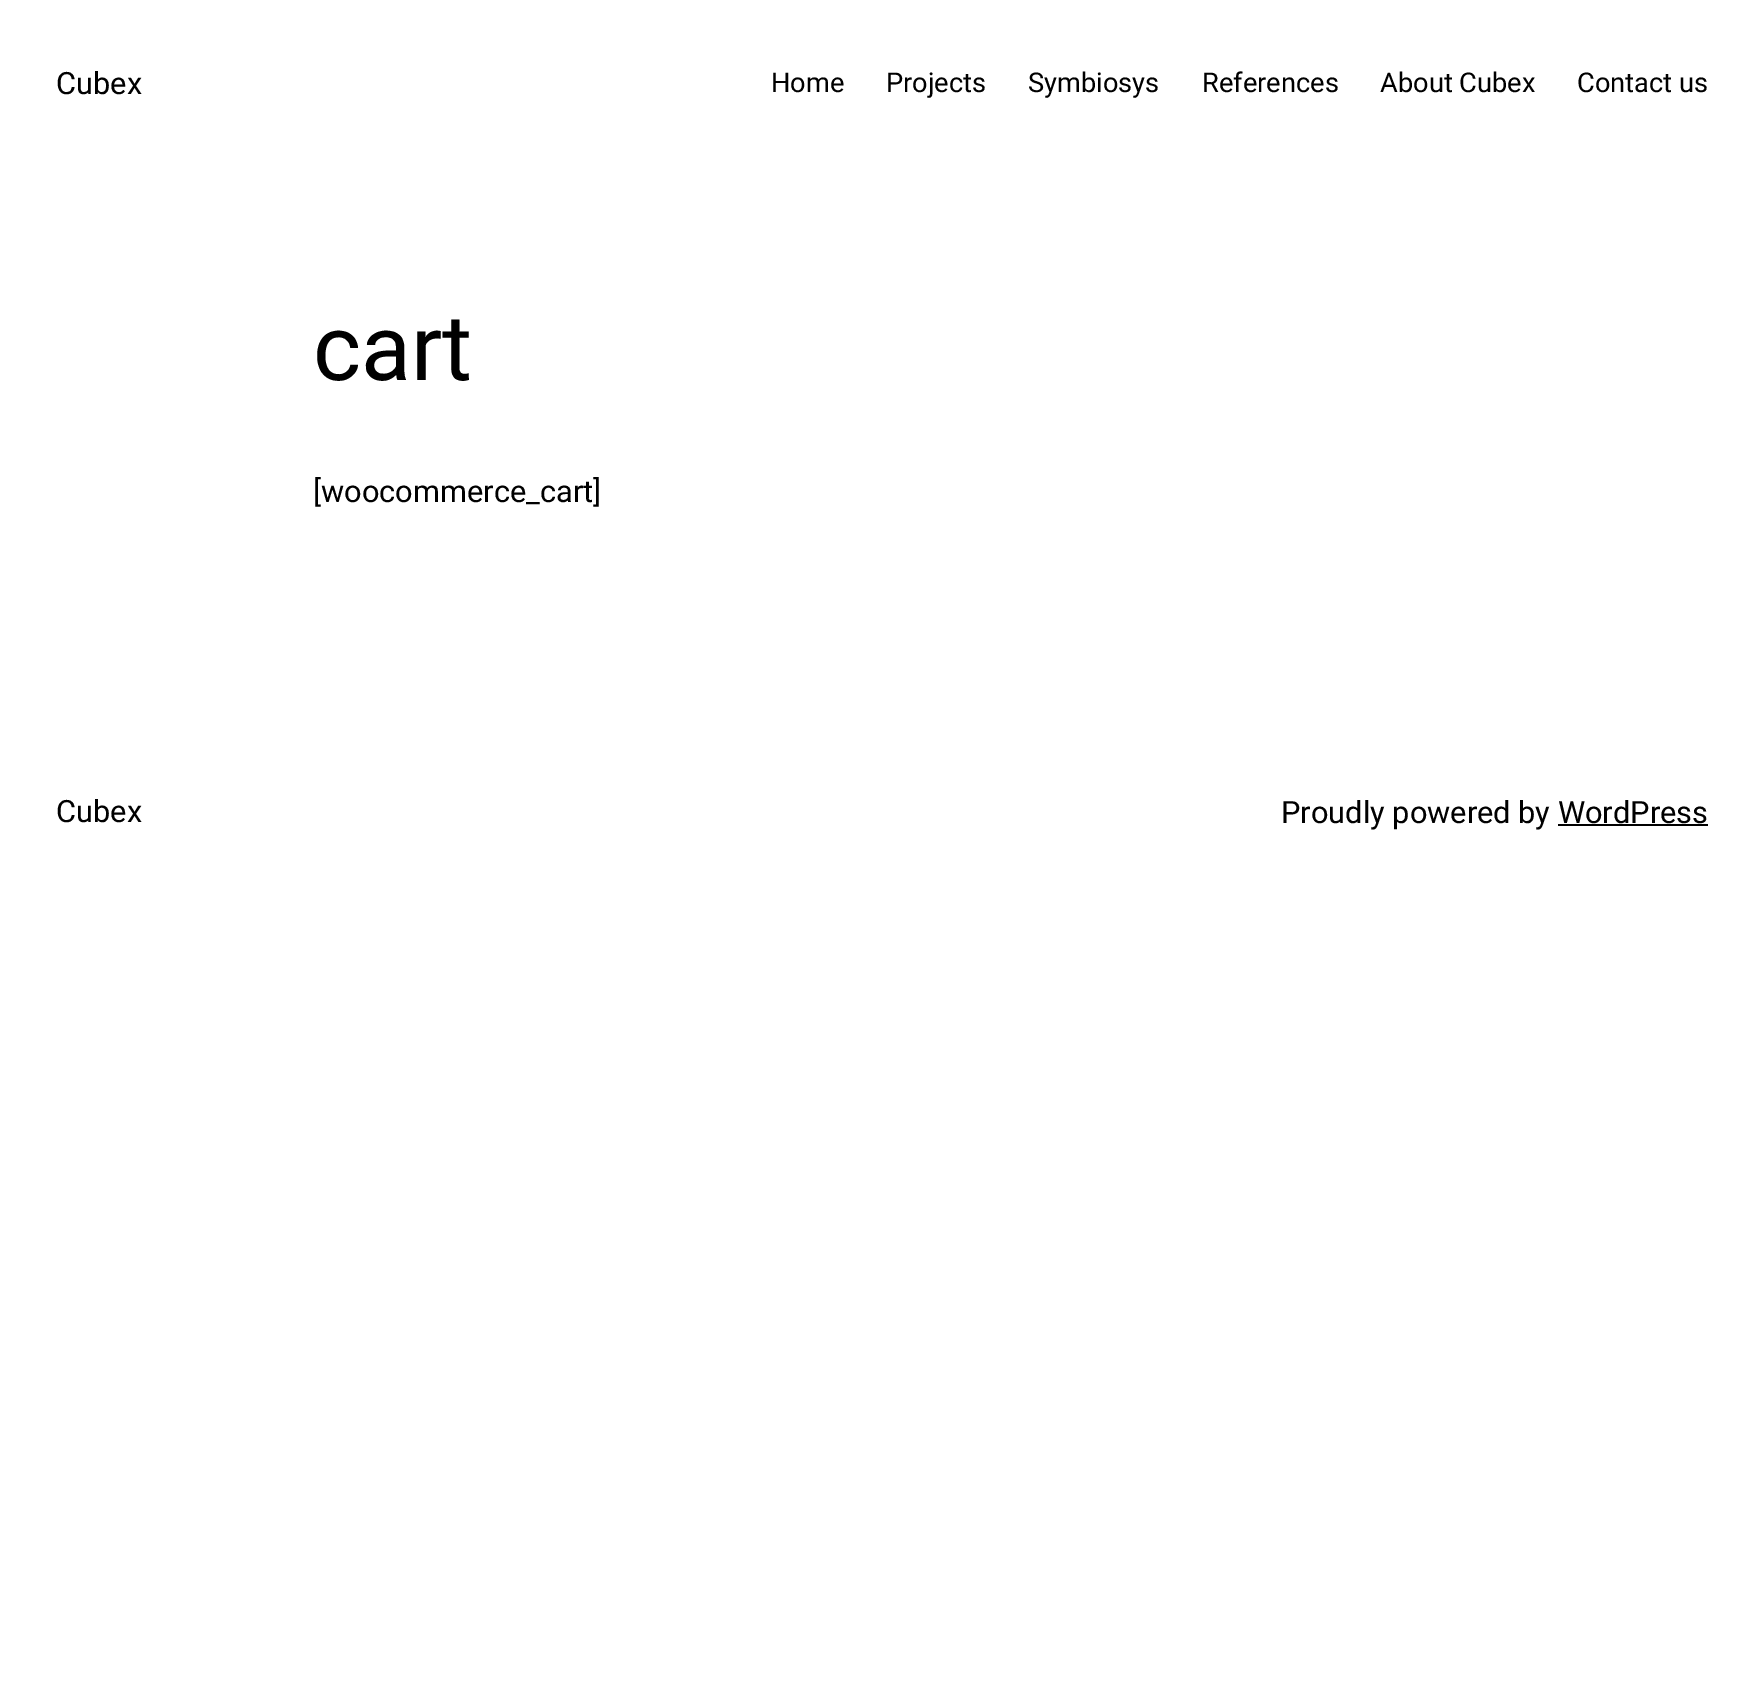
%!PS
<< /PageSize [1763 1694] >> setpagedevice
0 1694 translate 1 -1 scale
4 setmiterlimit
1 setgray
0 0 1763 1694 rectfill
/Roboto-Regular [30.75 0 0 -30.75 0 0] selectfont
0 setgray
56 94 moveto (Cubex) show
/Roboto-Regular [27.25 0 0 -27.25 0 0] selectfont
771 92 moveto (Home) show
886 92 moveto (Projects) show
1028 92 moveto (Symbiosys) show
1202 92 moveto (References) show
1380 92 moveto (About Cubex) show
1577 92 moveto (Contact us) show
/Roboto-Regular [92 0 0 -92 0 0] selectfont
313 380 moveto (cart) show
/Roboto-Regular [30.75 0 0 -30.75 0 0] selectfont
313 502 moveto ([woocommerce_cart]) show
56 822 moveto (Cubex) show
1281 823 moveto (Proudly powered by WordPress) show
1558 824 150 2 rectfill
showpage
